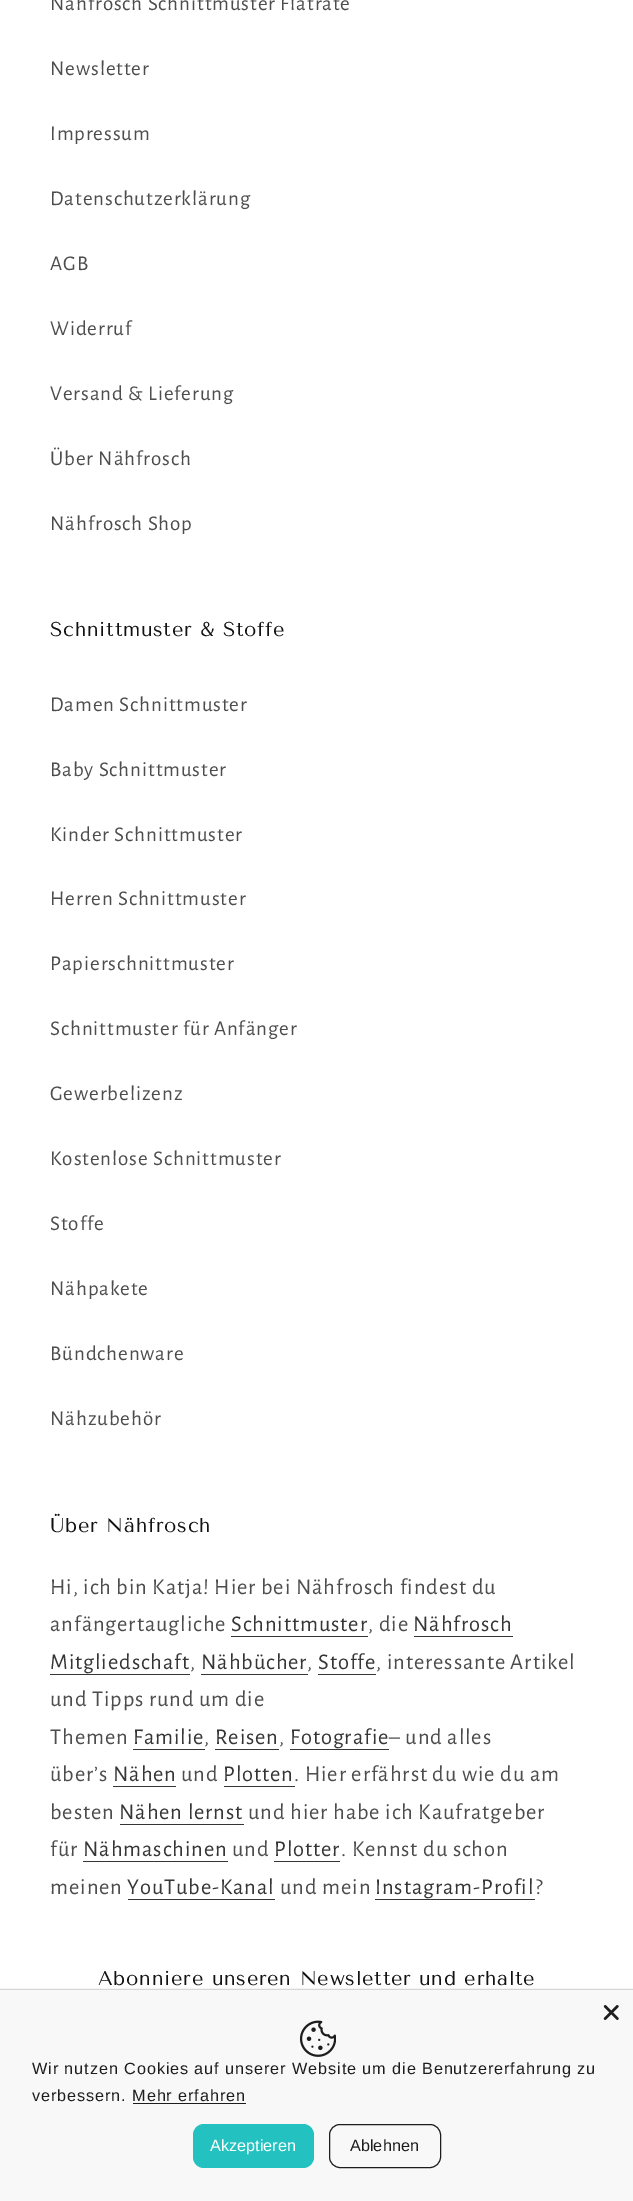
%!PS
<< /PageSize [633 2201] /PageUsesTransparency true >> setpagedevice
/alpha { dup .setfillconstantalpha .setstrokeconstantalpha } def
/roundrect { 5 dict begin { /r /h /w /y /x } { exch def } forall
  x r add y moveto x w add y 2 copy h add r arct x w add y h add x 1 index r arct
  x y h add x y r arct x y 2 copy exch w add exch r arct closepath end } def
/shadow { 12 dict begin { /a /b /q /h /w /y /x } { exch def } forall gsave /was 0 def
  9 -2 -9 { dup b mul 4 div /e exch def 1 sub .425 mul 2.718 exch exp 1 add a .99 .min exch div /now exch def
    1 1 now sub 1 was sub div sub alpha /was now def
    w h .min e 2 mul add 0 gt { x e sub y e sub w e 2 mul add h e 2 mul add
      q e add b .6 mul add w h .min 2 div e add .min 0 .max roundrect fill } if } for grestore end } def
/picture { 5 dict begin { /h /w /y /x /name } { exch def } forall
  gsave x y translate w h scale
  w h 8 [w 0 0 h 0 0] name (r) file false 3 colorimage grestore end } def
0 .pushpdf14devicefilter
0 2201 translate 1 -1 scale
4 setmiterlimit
1 setgray
0 0 633 2201 rectfill
/AlegreyaSans-Regular [21 0 0 -21 0 0] selectfont
0.302 setgray
50 10 moveto 0.9 0 (Nähfrosch Schnittmuster Flatrate) ashow
50 75 moveto 0.9 0 (Newsletter) ashow
50 140 moveto 0.9 0 (Impressum) ashow
50 205 moveto 0.9 0 (Datenschutzerklärung) ashow
50 270 moveto 0.9 0 (AGB) ashow
50 335 moveto 0.9 0 (Widerruf) ashow
50 400 moveto 0.9 0 (Versand & Lieferung) ashow
50 465 moveto 0.9 0 (Über Nähfrosch) ashow
50 530 moveto 0.9 0 (Nähfrosch Shop) ashow
/TenorSans-Regular [20 0 0 -20 0 0] selectfont
0.071 setgray
50 636 moveto 0.75 0 (Schnittmuster & Stoffe) ashow
/AlegreyaSans-Regular [21 0 0 -21 0 0] selectfont
0.302 setgray
50 711 moveto 0.9 0 (Damen Schnittmuster) ashow
50 776 moveto 0.9 0 (Baby Schnittmuster) ashow
50 841 moveto 0.9 0 (Kinder Schnittmuster) ashow
50 905 moveto 0.9 0 (Herren Schnittmuster) ashow
50 970 moveto 0.9 0 (Papierschnittmuster) ashow
50 1035 moveto 0.9 0 (Schnittmuster für Anfänger) ashow
50 1100 moveto 0.9 0 (Gewerbelizenz) ashow
50 1165 moveto 0.9 0 (Kostenlose Schnittmuster) ashow
50 1230 moveto 0.9 0 (Stoffe) ashow
50 1295 moveto 0.9 0 (Nähpakete) ashow
50 1360 moveto 0.9 0 (Bündchenware) ashow
50 1425 moveto 0.9 0 (Nähzubehör) ashow
/TenorSans-Regular [20 0 0 -20 0 0] selectfont
0.071 setgray
50 1532 moveto 0.75 0 (Über Nähfrosch) ashow
/AlegreyaSans-Regular [22.5 0 0 -22.5 0 0] selectfont
0.302 setgray
50 1594 moveto 0.9 0 (Hi, ich bin Katja! Hier bei Nähfrosch findest du) ashow
50 1631 moveto 0.9 0 (anfängertaugliche) ashow
0.212 setgray
231 1631 moveto 0.9 0 (Schnittmuster) ashow
231 1636 137 1 rectfill
0.302 setgray
368 1631 moveto 0.9 0 (, die) ashow
0.212 setgray
413 1631 moveto 0.9 0 (Nähfrosch) ashow
414 1636 99 1 rectfill
50 1669 moveto 0.9 0 (Mitgliedschaft) ashow
50 1674 140 1 rectfill
0.302 setgray
190 1669 moveto 0.9 0 (,) ashow
0.212 setgray
201 1669 moveto 0.9 0 (Nähbücher) ashow
201 1674 107 1 rectfill
0.302 setgray
307 1669 moveto 0.9 0 (,) ashow
0.212 setgray
318 1669 moveto 0.9 0 (Stoffe) ashow
318 1674 58 1 rectfill
0.302 setgray
376 1669 moveto 0.9 0 (, interessante Artikel) ashow
50 1706 moveto 0.9 0 (und Tipps rund um die) ashow
50 1744 moveto 0.9 0 (Themen) ashow
0.212 setgray
133 1744 moveto 0.9 0 (Familie) ashow
133 1749 72 1 rectfill
0.302 setgray
204 1744 moveto 0.9 0 (,) ashow
0.212 setgray
215 1744 moveto 0.9 0 (Reisen) ashow
215 1749 64 1 rectfill
0.302 setgray
279 1744 moveto 0.9 0 (,) ashow
0.212 setgray
290 1744 moveto 0.9 0 (Fotografie) ashow
290 1749 99 1 rectfill
0.302 setgray
389 1744 moveto 0.9 0 (– und alles) ashow
50 1781 moveto 0.9 0 (über’s) ashow
0.212 setgray
113 1781 moveto 0.9 0 (Nähen) ashow
113 1786 63 1 rectfill
0.302 setgray
181 1781 moveto 0.9 0 (und) ashow
0.212 setgray
223 1781 moveto 0.9 0 (Plotten) ashow
224 1786 71 1 rectfill
0.302 setgray
294 1781 moveto 0.9 0 (. Hier erfährst du wie du am) ashow
50 1819 moveto 0.9 0 (besten) ashow
0.212 setgray
119 1819 moveto 0.9 0 (Nähen lernst) ashow
120 1824 124 1 rectfill
0.302 setgray
248 1819 moveto 0.9 0 (und hier habe ich Kaufratgeber) ashow
50 1856 moveto 0.9 0 (für) ashow
0.212 setgray
83 1856 moveto 0.9 0 (Nähmaschinen) ashow
83 1861 145 1 rectfill
0.302 setgray
232 1856 moveto 0.9 0 (und) ashow
0.212 setgray
274 1856 moveto 0.9 0 (Plotter) ashow
274 1861 66 1 rectfill
0.302 setgray
341 1856 moveto 0.9 0 (. Kennst du schon) ashow
50 1894 moveto 0.9 0 (meinen) ashow
0.212 setgray
127 1894 moveto 0.9 0 (YouTube-Kanal) ashow
128 1899 147 1 rectfill
0.302 setgray
280 1894 moveto 0.9 0 (und mein) ashow
0.212 setgray
375 1894 moveto 0.9 0 (Instagram-Profil) ashow
375 1899 160 1 rectfill
0.302 setgray
535 1894 moveto 0.9 0 (?) ashow
/TenorSans-Regular [20 0 0 -20 0 0] selectfont
0.071 setgray
98 1985 moveto 0.75 0 (Abonniere unseren Newsletter und erhalte) ashow
0 setgray
0 1990 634 211 0 1 0.5 shadow
0.973 setgray
0 1990 633 211 rectfill
(img1.rgb) 603 2005 16 15 picture
(img2.rgb) 299 2020 37 37 picture
/LiberationSans-Regular [16.25 0 0 -16.25 0 0] selectfont
0.114 setgray
32 2074 moveto 0.9 0 (Wir nutzen Cookies auf unserer Website um die Benutzererfahrung zu) ashow
32 2101 moveto 0.9 0 (verbessern. Mehr erfahren) ashow
133 2103 113 1 rectfill
0.137 0.761 0.753 setrgbcolor
193 2124 121 44 11 roundrect fill
1 setgray
210 2151 moveto (Akzeptieren) show
0.114 setgray
329.5 2124.5 111 43 10.5 roundrect stroke
350 2151 moveto (Ablehnen) show
.poppdf14devicefilter showpage
